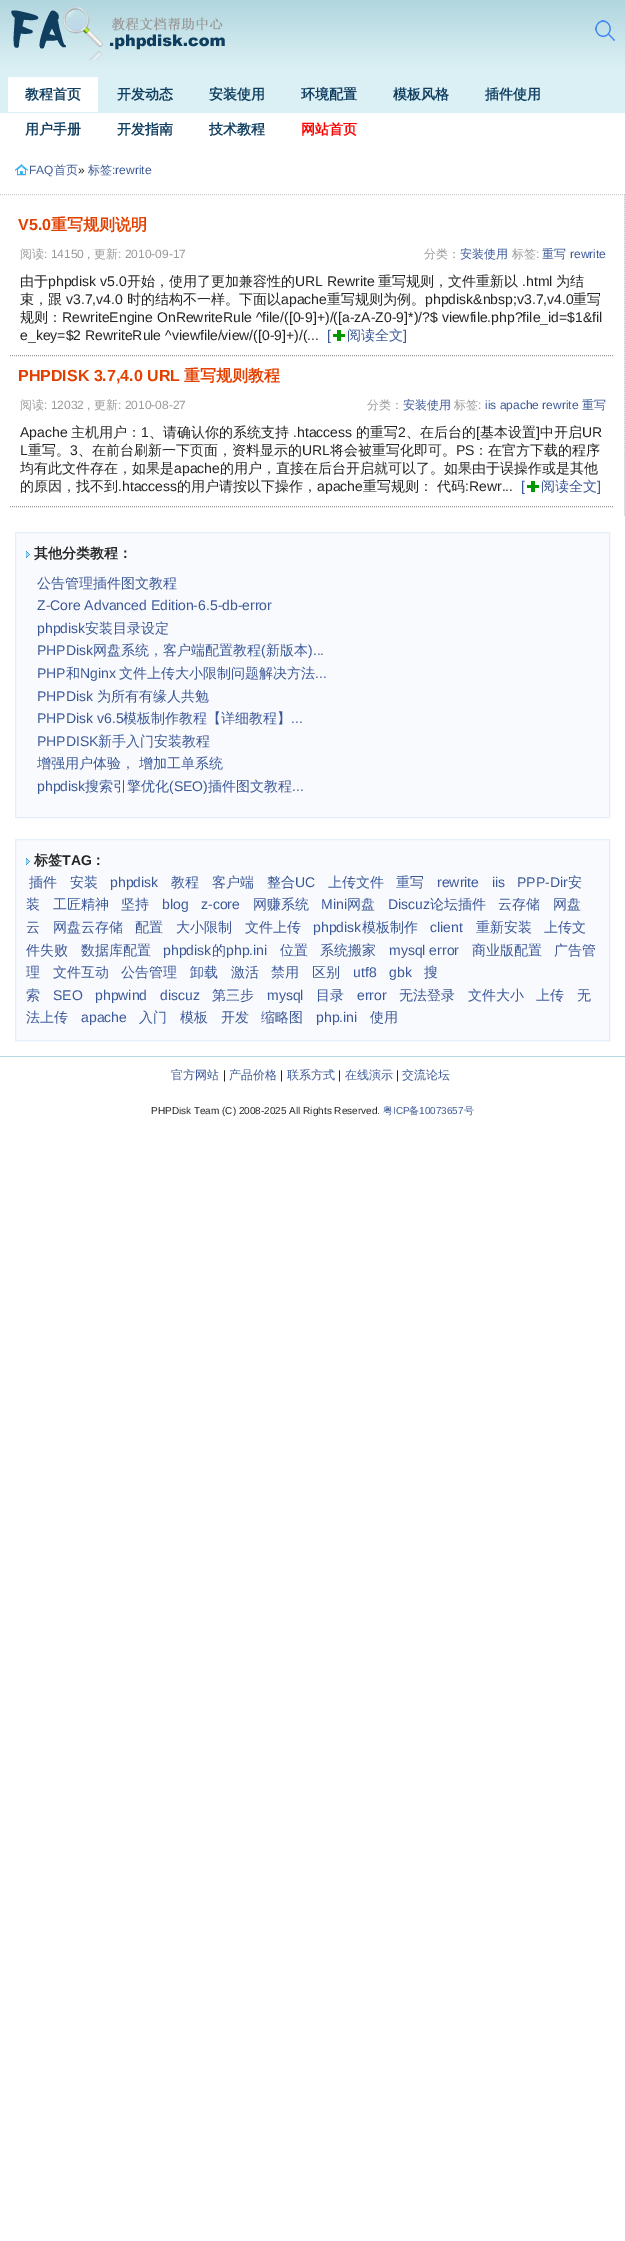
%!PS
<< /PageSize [625 2241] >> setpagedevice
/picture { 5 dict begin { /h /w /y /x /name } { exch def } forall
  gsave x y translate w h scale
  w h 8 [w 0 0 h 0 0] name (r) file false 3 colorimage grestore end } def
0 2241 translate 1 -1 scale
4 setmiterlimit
1 setgray
0 0 625 2241 rectfill
(img1.rgb) 0 0 625 74 picture
(img2.rgb) 11 7 214 53 picture
(img3.rgb) 595 20 20 21 picture
0.859 0.941 0.957 setrgbcolor
0 74 625 39 rectfill
1 setgray
8 77 90 35 rectfill
/WenQuanYiZenHei-Bold [14 0 0 -14 0 0] selectfont
0.067 0.247 0.38 setrgbcolor
25 99 moveto (教程首页) show
117 99 moveto (开发动态) show
209 99 moveto (安装使用) show
301 99 moveto (环境配置) show
393 99 moveto (模板风格) show
485 99 moveto (插件使用) show
25 134 moveto (用户手册) show
117 134 moveto (开发指南) show
209 134 moveto (技术教程) show
1 0 0 setrgbcolor
301 134 moveto (网站首页) show
0.8 setgray
[1 1] 0 setdash
newpath 0 194.5 moveto 625 194.5 lineto stroke
(img4.rgb) 15 164 13 12 picture
/LiberationSans-Regular [12 0 0 -12 0 0] selectfont
0.231 0.349 0.596 setrgbcolor
29 174 moveto (FAQ) show
/WenQuanYiZenHei-Medium [12 0 0 -12 0 0] selectfont
54 174 moveto (首页) show
/LiberationSans-Regular [12 0 0 -12 0 0] selectfont
0.145 setgray
78 174 moveto (») show
/WenQuanYiZenHei-Medium [12 0 0 -12 0 0] selectfont
0.231 0.349 0.596 setrgbcolor
88 174 moveto (标签) show
/LiberationSans-Regular [12 0 0 -12 0 0] selectfont
112 174 moveto (:rewrite) show
0.8 setgray
newpath 624.5 195 moveto 624.5 517 lineto stroke
/LiberationSans-Bold [16 0 0 -16 0 0] selectfont
0.89 0.251 0 setrgbcolor
18 230 moveto (V5.0) show
/WenQuanYiZenHei-Bold [16 0 0 -16 0 0] selectfont
51 230 moveto (重写规则说明) show
/WenQuanYiZenHei-Medium [12 0 0 -12 0 0] selectfont
0.6 setgray
20 258 moveto (阅读) show
/LiberationSans-Regular [12 0 0 -12 0 0] selectfont
44 258 moveto (: 14150 ,) show
/WenQuanYiZenHei-Medium [12 0 0 -12 0 0] selectfont
94 258 moveto (更新) show
/LiberationSans-Regular [12 0 0 -12 0 0] selectfont
118 258 moveto (: 2010-09-17) show
/WenQuanYiZenHei-Medium [12 0 0 -12 0 0] selectfont
424 258 moveto (分类：) show
0.231 0.349 0.596 setrgbcolor
460 258 moveto (安装使用) show
0.6 setgray
512 258 moveto (标签) show
/LiberationSans-Regular [12 0 0 -12 0 0] selectfont
536 258 moveto (:) show
/WenQuanYiZenHei-Medium [12 0 0 -12 0 0] selectfont
0.231 0.349 0.596 setrgbcolor
542 258 moveto (重写) show
/LiberationSans-Regular [12 0 0 -12 0 0] selectfont
570 258 moveto (rewrite) show
0.6 setgray
newpath 10 355.5 moveto 614 355.5 lineto stroke
/WenQuanYiZenHei-Medium [14 0 0 -14 0 0] selectfont
0.145 setgray
20 286 moveto (由于) show
/LiberationSans-Regular [14 0 0 -14 0 0] selectfont
48 286 moveto (phpdisk v5.0) show
/WenQuanYiZenHei-Medium [14 0 0 -14 0 0] selectfont
127 286 moveto (开始，使用了更加兼容性的) show
/LiberationSans-Regular [14 0 0 -14 0 0] selectfont
295 286 moveto (URL Rewrite) show
/WenQuanYiZenHei-Medium [14 0 0 -14 0 0] selectfont
378 286 moveto (重写规则，文件重新以) show
/LiberationSans-Regular [14 0 0 -14 0 0] selectfont
522 286 moveto (.html) show
/WenQuanYiZenHei-Medium [14 0 0 -14 0 0] selectfont
556 286 moveto (为结) show
20 304 moveto (束，跟) show
/LiberationSans-Regular [14 0 0 -14 0 0] selectfont
66 304 moveto (v3.7,v4.0) show
/WenQuanYiZenHei-Medium [14 0 0 -14 0 0] selectfont
127 304 moveto (时的结构不一样。下面以) show
/LiberationSans-Regular [14 0 0 -14 0 0] selectfont
281 304 moveto (apache) show
/WenQuanYiZenHei-Medium [14 0 0 -14 0 0] selectfont
327 304 moveto (重写规则为例。) show
/LiberationSans-Regular [14 0 0 -14 0 0] selectfont
425 304 moveto (phpdisk&nbsp;v3.7,v4.0) show
/WenQuanYiZenHei-Medium [14 0 0 -14 0 0] selectfont
573 304 moveto (重写) show
20 322 moveto (规则：) show
/LiberationSans-Regular [14 0 0 -14 0 0] selectfont
62 322 moveto (RewriteEngine OnRewriteRule ^file/\([0-9]+\)/\([a-zA-Z0-9]*\)/?$ viewfile.php?file_id=$1&fil) show
20 340 moveto (e_key=$2 RewriteRule ^viewfile/view/\([0-9]+\)/\(...) show
0.231 0.349 0.596 setrgbcolor
327 340 moveto ([) show
(img5.rgb) 333 330 12 11 picture
/WenQuanYiZenHei-Medium [14 0 0 -14 0 0] selectfont
347 340 moveto (阅读全文) show
/LiberationSans-Regular [14 0 0 -14 0 0] selectfont
403 340 moveto (]) show
/LiberationSans-Bold [16 0 0 -16 0 0] selectfont
0.89 0.251 0 setrgbcolor
18 381 moveto (PHPDISK 3.7,4.0 URL) show
/WenQuanYiZenHei-Bold [16 0 0 -16 0 0] selectfont
184 381 moveto (重写规则教程) show
/WenQuanYiZenHei-Medium [12 0 0 -12 0 0] selectfont
0.6 setgray
20 409 moveto (阅读) show
/LiberationSans-Regular [12 0 0 -12 0 0] selectfont
44 409 moveto (: 12032 ,) show
/WenQuanYiZenHei-Medium [12 0 0 -12 0 0] selectfont
94 409 moveto (更新) show
/LiberationSans-Regular [12 0 0 -12 0 0] selectfont
118 409 moveto (: 2010-08-27) show
/WenQuanYiZenHei-Medium [12 0 0 -12 0 0] selectfont
367 409 moveto (分类：) show
0.231 0.349 0.596 setrgbcolor
403 409 moveto (安装使用) show
0.6 setgray
454 409 moveto (标签) show
/LiberationSans-Regular [12 0 0 -12 0 0] selectfont
478 409 moveto (:) show
0.231 0.349 0.596 setrgbcolor
485 409 moveto (iis apache rewrite) show
/WenQuanYiZenHei-Medium [12 0 0 -12 0 0] selectfont
582 409 moveto (重写) show
0.6 setgray
newpath 10 506.5 moveto 614 506.5 lineto stroke
/LiberationSans-Regular [14 0 0 -14 0 0] selectfont
0.145 setgray
20 437 moveto (Apache) show
/WenQuanYiZenHei-Medium [14 0 0 -14 0 0] selectfont
71 437 moveto (主机用户：) show
/LiberationSans-Regular [14 0 0 -14 0 0] selectfont
141 437 moveto (1) show
/WenQuanYiZenHei-Medium [14 0 0 -14 0 0] selectfont
149 437 moveto (、请确认你的系统支持) show
/LiberationSans-Regular [14 0 0 -14 0 0] selectfont
293 437 moveto (.htaccess) show
/WenQuanYiZenHei-Medium [14 0 0 -14 0 0] selectfont
356 437 moveto (的重写) show
/LiberationSans-Regular [14 0 0 -14 0 0] selectfont
398 437 moveto (2) show
/WenQuanYiZenHei-Medium [14 0 0 -14 0 0] selectfont
406 437 moveto (、在后台的) show
/LiberationSans-Regular [14 0 0 -14 0 0] selectfont
476 437 moveto ([) show
/WenQuanYiZenHei-Medium [14 0 0 -14 0 0] selectfont
480 437 moveto (基本设置) show
/LiberationSans-Regular [14 0 0 -14 0 0] selectfont
536 437 moveto (]) show
/WenQuanYiZenHei-Medium [14 0 0 -14 0 0] selectfont
540 437 moveto (中开启) show
/LiberationSans-Regular [14 0 0 -14 0 0] selectfont
582 437 moveto (UR) show
20 455 moveto (L) show
/WenQuanYiZenHei-Medium [14 0 0 -14 0 0] selectfont
28 455 moveto (重写。) show
/LiberationSans-Regular [14 0 0 -14 0 0] selectfont
70 455 moveto (3) show
/WenQuanYiZenHei-Medium [14 0 0 -14 0 0] selectfont
78 455 moveto (、在前台刷新一下页面，资料显示的) show
/LiberationSans-Regular [14 0 0 -14 0 0] selectfont
302 455 moveto (URL) show
/WenQuanYiZenHei-Medium [14 0 0 -14 0 0] selectfont
330 455 moveto (将会被重写化即可。) show
/LiberationSans-Regular [14 0 0 -14 0 0] selectfont
456 455 moveto (PS) show
/WenQuanYiZenHei-Medium [14 0 0 -14 0 0] selectfont
474 455 moveto (：在官方下载的程序) show
20 473 moveto (均有此文件存在，如果是) show
/LiberationSans-Regular [14 0 0 -14 0 0] selectfont
174 473 moveto (apache) show
/WenQuanYiZenHei-Medium [14 0 0 -14 0 0] selectfont
220 473 moveto (的用户，直接在后台开启就可以了。如果由于误操作或是其他) show
20 491 moveto (的原因，找不到) show
/LiberationSans-Regular [14 0 0 -14 0 0] selectfont
118 491 moveto (.htaccess) show
/WenQuanYiZenHei-Medium [14 0 0 -14 0 0] selectfont
177 491 moveto (的用户请按以下操作，) show
/LiberationSans-Regular [14 0 0 -14 0 0] selectfont
317 491 moveto (apache) show
/WenQuanYiZenHei-Medium [14 0 0 -14 0 0] selectfont
363 491 moveto (重写规则： 代码) show
/LiberationSans-Regular [14 0 0 -14 0 0] selectfont
465 491 moveto (:Rewr...) show
0.231 0.349 0.596 setrgbcolor
521 491 moveto ([) show
(img5.rgb) 527 481 12 11 picture
/WenQuanYiZenHei-Medium [14 0 0 -14 0 0] selectfont
541 491 moveto (阅读全文) show
/LiberationSans-Regular [14 0 0 -14 0 0] selectfont
597 491 moveto (]) show
0.976 0.98 0.996 setrgbcolor
newpath 15.5 532.5 moveto 609.5 532.5 lineto 609.5 817.5 lineto 15.5 817.5 lineto closepath gsave fill grestore
0.89 0.937 0.984 setrgbcolor
[] 0 setdash
stroke
(img6.rgb) 26 551 4 7 picture
/WenQuanYiZenHei-Bold [14 0 0 -14 0 0] selectfont
0.145 setgray
34 558 moveto (其他分类教程：) show
/WenQuanYiZenHei-Medium [14 0 0 -14 0 0] selectfont
0.231 0.349 0.596 setrgbcolor
37 588 moveto (公告管理插件图文教程) show
/LiberationSans-Regular [14 0 0 -14 0 0] selectfont
37 610 moveto (Z-Core Advanced Edition-6.5-db-error) show
37 633 moveto (phpdisk) show
/WenQuanYiZenHei-Medium [14 0 0 -14 0 0] selectfont
85 633 moveto (安装目录设定) show
/LiberationSans-Regular [14 0 0 -14 0 0] selectfont
37 655 moveto (PHPDisk) show
/WenQuanYiZenHei-Medium [14 0 0 -14 0 0] selectfont
93 655 moveto (网盘系统，客户端配置教程) show
/LiberationSans-Regular [14 0 0 -14 0 0] selectfont
261 655 moveto (\() show
/WenQuanYiZenHei-Medium [14 0 0 -14 0 0] selectfont
266 655 moveto (新版本) show
/LiberationSans-Regular [14 0 0 -14 0 0] selectfont
308 655 moveto (\)...) show
37 678 moveto (PHP) show
/WenQuanYiZenHei-Medium [14 0 0 -14 0 0] selectfont
66 678 moveto (和) show
/LiberationSans-Regular [14 0 0 -14 0 0] selectfont
80 678 moveto (Nginx) show
/WenQuanYiZenHei-Medium [14 0 0 -14 0 0] selectfont
119 678 moveto (文件上传大小限制问题解决方法) show
/LiberationSans-Regular [14 0 0 -14 0 0] selectfont
315 678 moveto (...) show
37 701 moveto (PHPDisk) show
/WenQuanYiZenHei-Medium [14 0 0 -14 0 0] selectfont
97 701 moveto (为所有有缘人共勉) show
/LiberationSans-Regular [14 0 0 -14 0 0] selectfont
37 723 moveto (PHPDisk v6.5) show
/WenQuanYiZenHei-Medium [14 0 0 -14 0 0] selectfont
123 723 moveto (模板制作教程【详细教程】) show
/LiberationSans-Regular [14 0 0 -14 0 0] selectfont
291 723 moveto (...) show
37 746 moveto (PHPDISK) show
/WenQuanYiZenHei-Medium [14 0 0 -14 0 0] selectfont
98 746 moveto (新手入门安装教程) show
37 768 moveto (增强用户体验， 增加工单系统) show
/LiberationSans-Regular [14 0 0 -14 0 0] selectfont
37 791 moveto (phpdisk) show
/WenQuanYiZenHei-Medium [14 0 0 -14 0 0] selectfont
85 791 moveto (搜索引擎优化) show
/LiberationSans-Regular [14 0 0 -14 0 0] selectfont
169 791 moveto (\(SEO\)) show
/WenQuanYiZenHei-Medium [14 0 0 -14 0 0] selectfont
208 791 moveto (插件图文教程) show
/LiberationSans-Regular [14 0 0 -14 0 0] selectfont
292 791 moveto (...) show
0.976 0.98 0.996 setrgbcolor
newpath 15.5 839.5 moveto 609.5 839.5 lineto 609.5 1040.5 lineto 15.5 1040.5 lineto closepath gsave fill grestore
0.89 0.937 0.984 setrgbcolor
stroke
(img6.rgb) 26 858 4 7 picture
/WenQuanYiZenHei-Bold [14 0 0 -14 0 0] selectfont
0.145 setgray
34 865 moveto (标签) show
/LiberationSans-Bold [14 0 0 -14 0 0] selectfont
62 865 moveto (TAG) show
/WenQuanYiZenHei-Bold [14 0 0 -14 0 0] selectfont
91 865 moveto (：) show
/WenQuanYiZenHei-Medium [14 0 0 -14 0 0] selectfont
0.231 0.349 0.596 setrgbcolor
29 887 moveto (插件) show
70 887 moveto (安装) show
/LiberationSans-Regular [14 0 0 -14 0 0] selectfont
110 887 moveto (phpdisk) show
/WenQuanYiZenHei-Medium [14 0 0 -14 0 0] selectfont
171 887 moveto (教程) show
212 887 moveto (客户端) show
267 887 moveto (整合) show
/LiberationSans-Regular [14 0 0 -14 0 0] selectfont
295 887 moveto (UC) show
/WenQuanYiZenHei-Medium [14 0 0 -14 0 0] selectfont
328 887 moveto (上传文件) show
396 887 moveto (重写) show
/LiberationSans-Regular [14 0 0 -14 0 0] selectfont
437 887 moveto (rewrite) show
492 887 moveto (iis) show
517 887 moveto (PPP-Dir) show
/WenQuanYiZenHei-Medium [14 0 0 -14 0 0] selectfont
568 887 moveto (安) show
26 909 moveto (装) show
53 909 moveto (工匠精神) show
121 909 moveto (坚持) show
/LiberationSans-Regular [14 0 0 -14 0 0] selectfont
162 909 moveto (blog) show
201 909 moveto (z-core) show
/WenQuanYiZenHei-Medium [14 0 0 -14 0 0] selectfont
253 909 moveto (网赚系统) show
/LiberationSans-Regular [14 0 0 -14 0 0] selectfont
321 909 moveto (Mini) show
/WenQuanYiZenHei-Medium [14 0 0 -14 0 0] selectfont
347 909 moveto (网盘) show
/LiberationSans-Regular [14 0 0 -14 0 0] selectfont
388 909 moveto (Discuz) show
/WenQuanYiZenHei-Medium [14 0 0 -14 0 0] selectfont
430 909 moveto (论坛插件) show
498 909 moveto (云存储) show
553 909 moveto (网盘) show
26 932 moveto (云) show
53 932 moveto (网盘云存储) show
135 932 moveto (配置) show
176 932 moveto (大小限制) show
245 932 moveto (文件上传) show
/LiberationSans-Regular [14 0 0 -14 0 0] selectfont
313 932 moveto (phpdisk) show
/WenQuanYiZenHei-Medium [14 0 0 -14 0 0] selectfont
362 932 moveto (模板制作) show
/LiberationSans-Regular [14 0 0 -14 0 0] selectfont
430 932 moveto (client) show
/WenQuanYiZenHei-Medium [14 0 0 -14 0 0] selectfont
476 932 moveto (重新安装) show
544 932 moveto (上传文) show
26 955 moveto (件失败) show
81 955 moveto (数据库配置) show
/LiberationSans-Regular [14 0 0 -14 0 0] selectfont
163 955 moveto (phpdisk) show
/WenQuanYiZenHei-Medium [14 0 0 -14 0 0] selectfont
212 955 moveto (的) show
/LiberationSans-Regular [14 0 0 -14 0 0] selectfont
226 955 moveto (php.ini) show
/WenQuanYiZenHei-Medium [14 0 0 -14 0 0] selectfont
280 955 moveto (位置) show
320 955 moveto (系统搬家) show
/LiberationSans-Regular [14 0 0 -14 0 0] selectfont
389 955 moveto (mysql error) show
/WenQuanYiZenHei-Medium [14 0 0 -14 0 0] selectfont
472 955 moveto (商业版配置) show
554 955 moveto (广告管) show
26 977 moveto (理) show
53 977 moveto (文件互动) show
121 977 moveto (公告管理) show
190 977 moveto (卸载) show
231 977 moveto (激活) show
271 977 moveto (禁用) show
312 977 moveto (区别) show
/LiberationSans-Regular [14 0 0 -14 0 0] selectfont
353 977 moveto (utf8) show
389 977 moveto (gbk) show
/WenQuanYiZenHei-Medium [14 0 0 -14 0 0] selectfont
424 977 moveto (搜) show
26 1000 moveto (索) show
/LiberationSans-Regular [14 0 0 -14 0 0] selectfont
53 1000 moveto (SEO) show
95 1000 moveto (phpwind) show
160 1000 moveto (discuz) show
/WenQuanYiZenHei-Medium [14 0 0 -14 0 0] selectfont
212 1000 moveto (第三步) show
/LiberationSans-Regular [14 0 0 -14 0 0] selectfont
267 1000 moveto (mysql) show
/WenQuanYiZenHei-Medium [14 0 0 -14 0 0] selectfont
316 1000 moveto (目录) show
/LiberationSans-Regular [14 0 0 -14 0 0] selectfont
357 1000 moveto (error) show
/WenQuanYiZenHei-Medium [14 0 0 -14 0 0] selectfont
399 1000 moveto (无法登录) show
468 1000 moveto (文件大小) show
536 1000 moveto (上传) show
577 1000 moveto (无) show
26 1022 moveto (法上传) show
/LiberationSans-Regular [14 0 0 -14 0 0] selectfont
81 1022 moveto (apache) show
/WenQuanYiZenHei-Medium [14 0 0 -14 0 0] selectfont
139 1022 moveto (入门) show
180 1022 moveto (模板) show
221 1022 moveto (开发) show
261 1022 moveto (缩略图) show
/LiberationSans-Regular [14 0 0 -14 0 0] selectfont
316 1022 moveto (php.ini) show
/WenQuanYiZenHei-Medium [14 0 0 -14 0 0] selectfont
370 1022 moveto (使用) show
0.718 0.851 0.886 setrgbcolor
0 1056 625 1 rectfill
/WenQuanYiZenHei-Medium [12 0 0 -12 0 0] selectfont
0.231 0.349 0.596 setrgbcolor
171 1079 moveto (官方网站) show
/LiberationSans-Regular [12 0 0 -12 0 0] selectfont
0.145 setgray
223 1079 moveto (|) show
/WenQuanYiZenHei-Medium [12 0 0 -12 0 0] selectfont
0.231 0.349 0.596 setrgbcolor
229 1079 moveto (产品价格) show
/LiberationSans-Regular [12 0 0 -12 0 0] selectfont
0.145 setgray
280 1079 moveto (|) show
/WenQuanYiZenHei-Medium [12 0 0 -12 0 0] selectfont
0.231 0.349 0.596 setrgbcolor
287 1079 moveto (联系方式) show
/LiberationSans-Regular [12 0 0 -12 0 0] selectfont
0.145 setgray
338 1079 moveto (|) show
/WenQuanYiZenHei-Medium [12 0 0 -12 0 0] selectfont
0.231 0.349 0.596 setrgbcolor
345 1079 moveto (在线演示) show
/LiberationSans-Regular [12 0 0 -12 0 0] selectfont
0.145 setgray
396 1079 moveto (|) show
/WenQuanYiZenHei-Medium [12 0 0 -12 0 0] selectfont
0.231 0.349 0.596 setrgbcolor
402 1079 moveto (交流论坛) show
/LiberationSans-Regular [10 0 0 -10 0 0] selectfont
0.145 setgray
151 1114 moveto (PHPDisk Team \(C\) 2008-2025 All Rights Reserved.) show
/WenQuanYiZenHei-Medium [10 0 0 -10 0 0] selectfont
0.231 0.349 0.596 setrgbcolor
383 1114 moveto (粤) show
/LiberationSans-Regular [10 0 0 -10 0 0] selectfont
393 1114 moveto (ICP) show
/WenQuanYiZenHei-Medium [10 0 0 -10 0 0] selectfont
409 1114 moveto (备) show
/LiberationSans-Regular [10 0 0 -10 0 0] selectfont
419 1114 moveto (10073657) show
/WenQuanYiZenHei-Medium [10 0 0 -10 0 0] selectfont
464 1114 moveto (号) show
showpage
